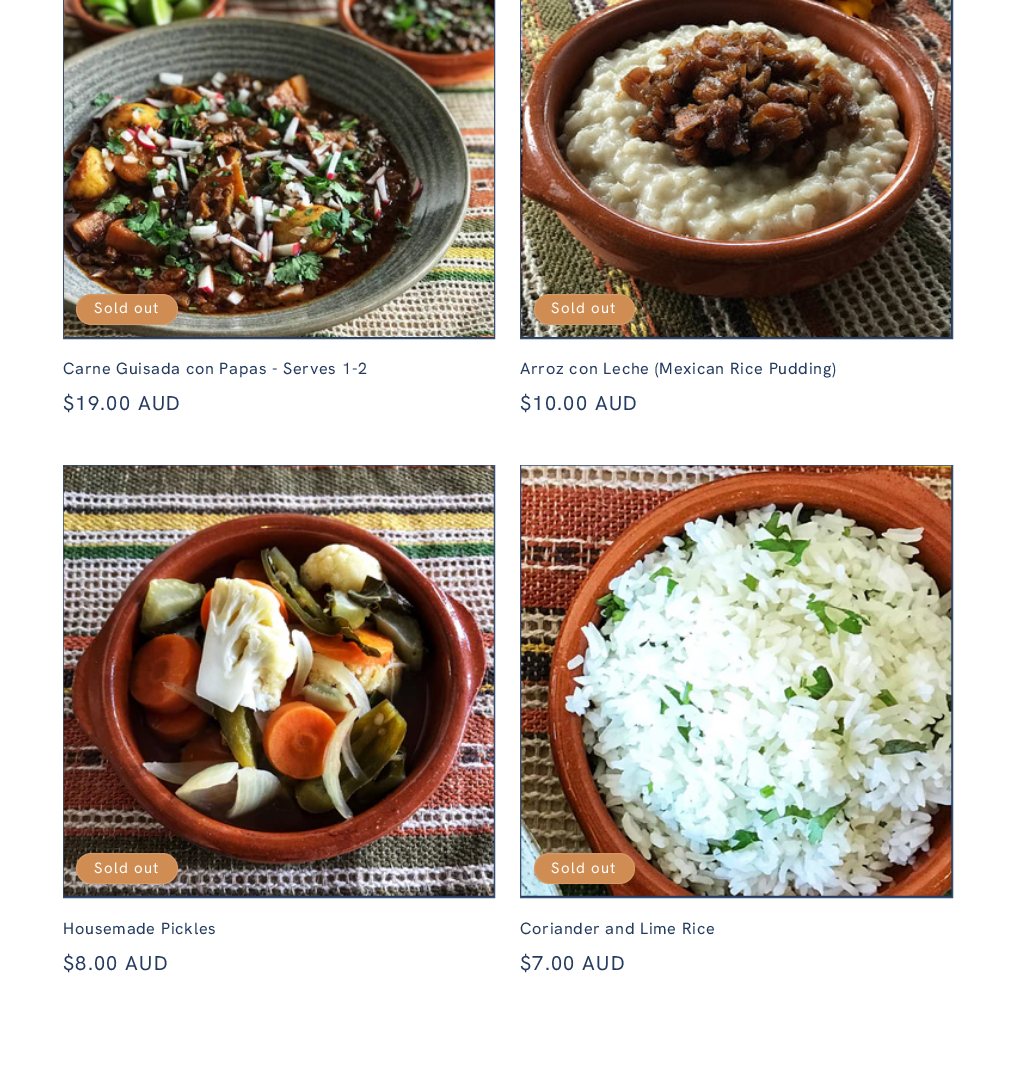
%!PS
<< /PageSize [1015 1079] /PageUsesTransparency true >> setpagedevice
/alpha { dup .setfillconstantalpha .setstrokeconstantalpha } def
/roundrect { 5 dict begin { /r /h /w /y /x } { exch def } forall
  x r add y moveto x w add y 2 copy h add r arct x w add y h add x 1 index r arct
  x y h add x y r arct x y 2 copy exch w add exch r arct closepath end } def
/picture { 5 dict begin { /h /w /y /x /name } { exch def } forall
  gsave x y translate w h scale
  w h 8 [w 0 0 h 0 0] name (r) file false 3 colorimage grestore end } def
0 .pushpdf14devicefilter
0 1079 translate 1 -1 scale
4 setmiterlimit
1 setgray
0 0 1015 1079 rectfill
0.141 0.231 0.373 setrgbcolor
64 337 430 1 rectfill
0.227 0.31 0.435 setrgbcolor
63.5 -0.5 431 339 rectstroke
(img1.rgb) 64 0 430 337 picture
0.812 0.553 0.325 setrgbcolor
76 294 102 31 15.5 roundrect fill
0.1 alpha
1 setgray
76.5 294.5 101 30 15 roundrect stroke
/HankenGrotesk-Regular [15 0 0 -15 0 0] selectfont
1 alpha
94 313 moveto 1.25 0 (Sold out) ashow
/HankenGrotesk-Regular [16.25 0 0 -16.25 0 0] selectfont
0.141 0.231 0.373 setrgbcolor
63 374 moveto 0.75 0 (Carne Guisada con Papas - Serves 1-2) ashow
/HankenGrotesk-Regular [20 0 0 -20 0 0] selectfont
63 410 moveto 1.25 0 ($19.00 AUD) ashow
newpath 520.5 -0.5 moveto 952.5 -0.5 lineto 952.5 338.5 lineto 520.5 338.5 lineto closepath gsave fill grestore
0.227 0.31 0.435 setrgbcolor
stroke
(img2.rgb) 521 0 430 337 picture
0.812 0.553 0.325 setrgbcolor
534 294 101 31 15.5 roundrect fill
0.1 alpha
1 setgray
534.5 294.5 100 30 15 roundrect stroke
/HankenGrotesk-Regular [15 0 0 -15 0 0] selectfont
1 alpha
551 313 moveto 1.25 0 (Sold out) ashow
/HankenGrotesk-Regular [16.25 0 0 -16.25 0 0] selectfont
0.141 0.231 0.373 setrgbcolor
520 374 moveto 0.75 0 (Arroz con Leche \(Mexican Rice Pudding\)) ashow
/HankenGrotesk-Regular [20 0 0 -20 0 0] selectfont
520 410 moveto 1.25 0 ($10.00 AUD) ashow
newpath 63.5 465.5 moveto 494.5 465.5 lineto 494.5 897.5 lineto 63.5 897.5 lineto closepath gsave fill grestore
0.227 0.31 0.435 setrgbcolor
stroke
(img3.rgb) 63 465 431 431 picture
0.812 0.553 0.325 setrgbcolor
76 853 102 31 15.5 roundrect fill
0.1 alpha
1 setgray
76.5 853.5 101 30 15 roundrect stroke
/HankenGrotesk-Regular [15 0 0 -15 0 0] selectfont
1 alpha
94 873 moveto 1.25 0 (Sold out) ashow
/HankenGrotesk-Regular [16.25 0 0 -16.25 0 0] selectfont
0.141 0.231 0.373 setrgbcolor
63 934 moveto 0.75 0 (Housemade Pickles) ashow
/HankenGrotesk-Regular [20 0 0 -20 0 0] selectfont
63 970 moveto 1.25 0 ($8.00 AUD) ashow
newpath 520.5 465.5 moveto 952.5 465.5 lineto 952.5 897.5 lineto 520.5 897.5 lineto closepath gsave fill grestore
0.227 0.31 0.435 setrgbcolor
stroke
(img4.rgb) 521 465 431 431 picture
0.812 0.553 0.325 setrgbcolor
534 853 101 31 15.5 roundrect fill
0.1 alpha
1 setgray
534.5 853.5 100 30 15 roundrect stroke
/HankenGrotesk-Regular [15 0 0 -15 0 0] selectfont
1 alpha
551 873 moveto 1.25 0 (Sold out) ashow
/HankenGrotesk-Regular [16.25 0 0 -16.25 0 0] selectfont
0.141 0.231 0.373 setrgbcolor
520 934 moveto 0.75 0 (Coriander and Lime Rice) ashow
/HankenGrotesk-Regular [20 0 0 -20 0 0] selectfont
520 970 moveto 1.25 0 ($7.00 AUD) ashow
.poppdf14devicefilter showpage
